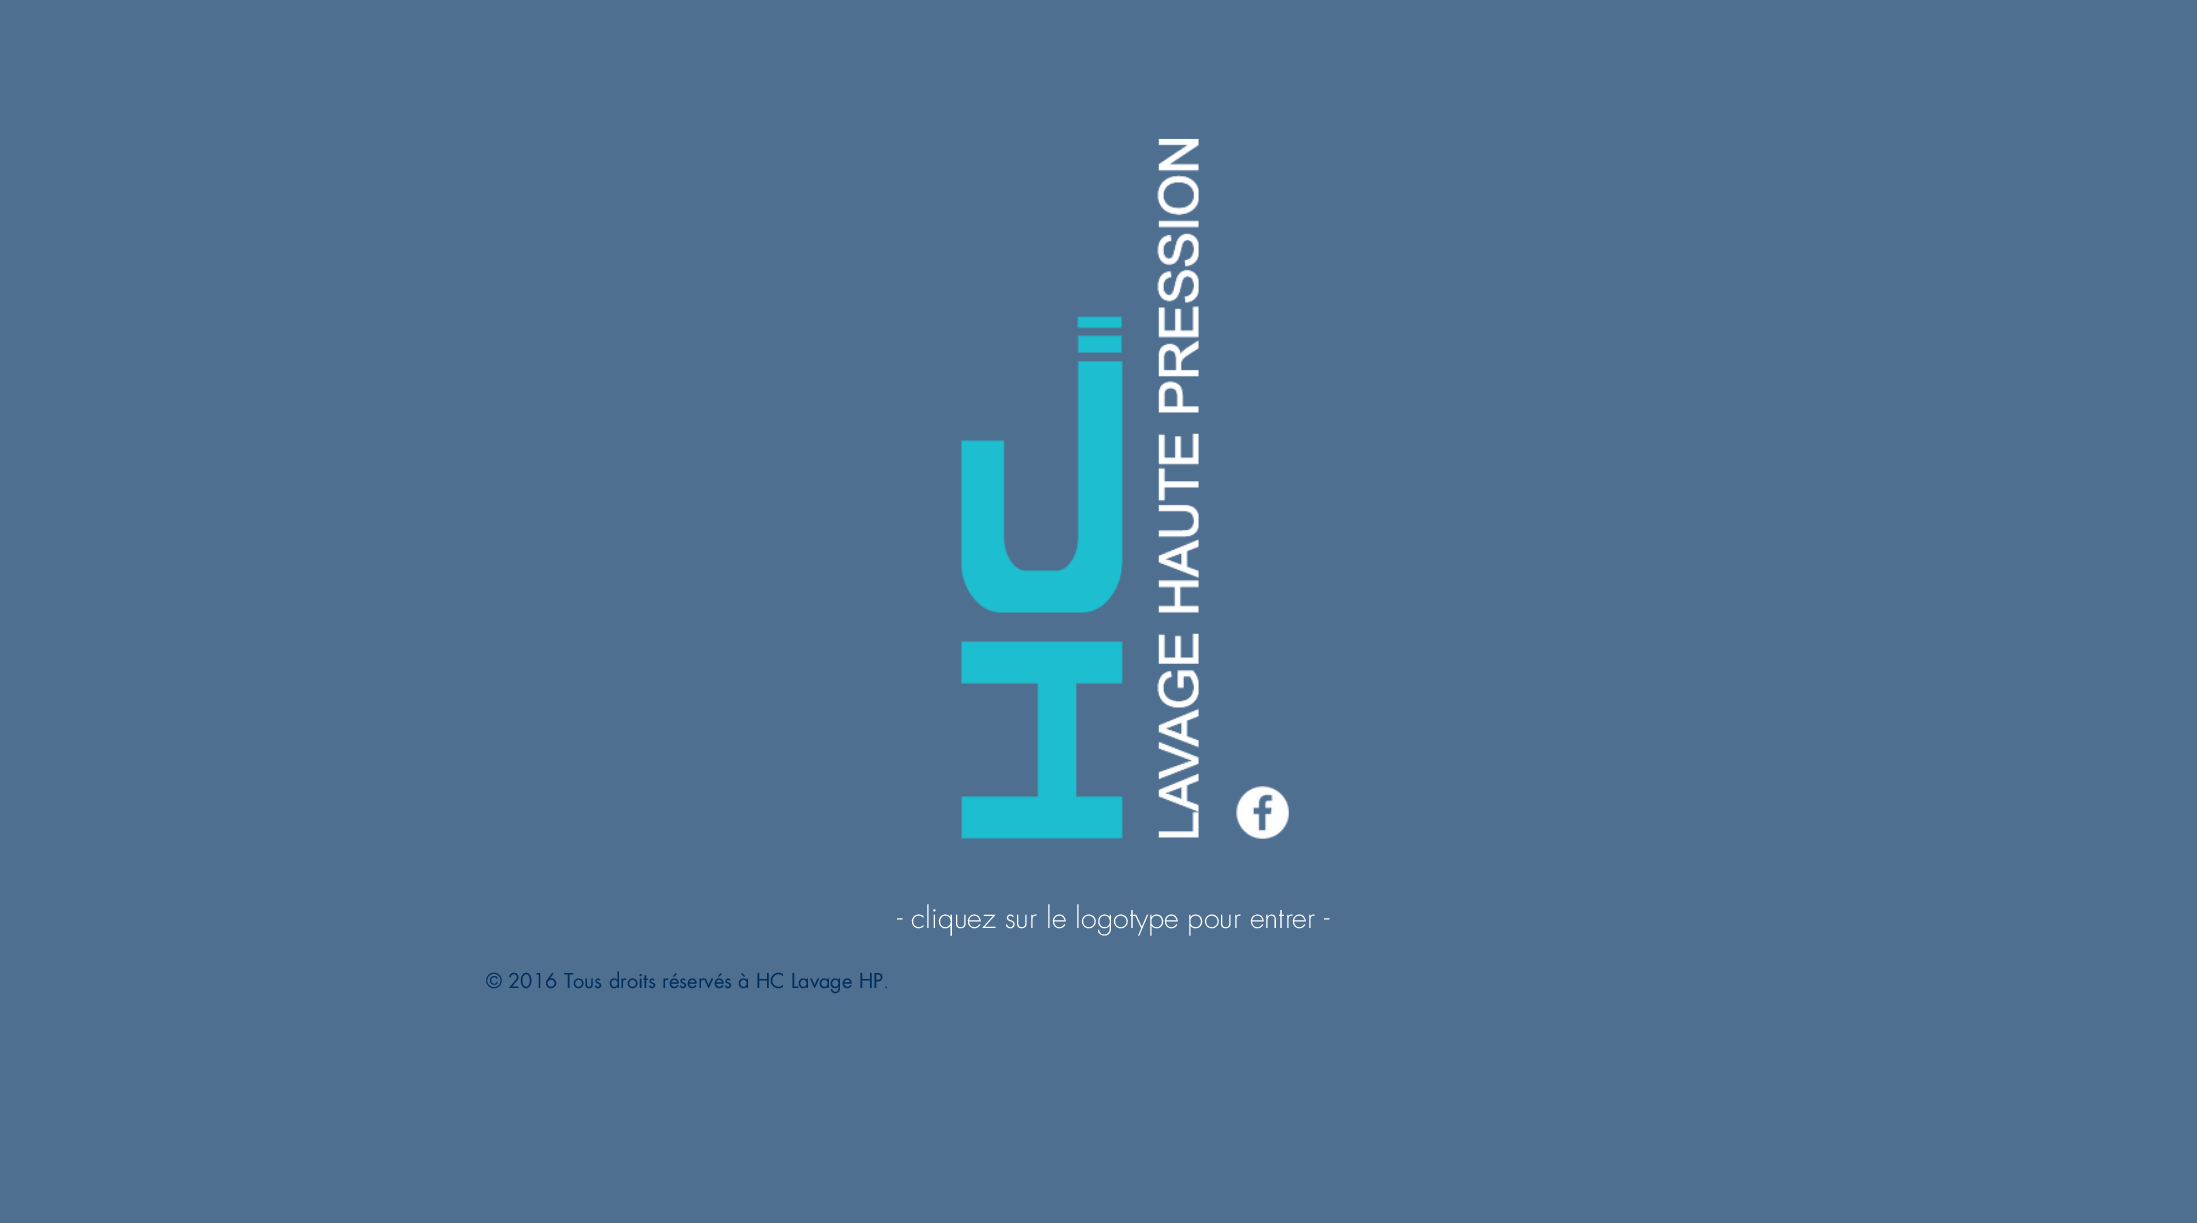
%!PS
<< /PageSize [2197 1223] >> setpagedevice
/picture { 5 dict begin { /h /w /y /x /name } { exch def } forall
  gsave x y translate w h scale
  w h 8 [w 0 0 h 0 0] name (r) file false 3 colorimage grestore end } def
0 1223 translate 1 -1 scale
4 setmiterlimit
0.31 0.435 0.565 setrgbcolor
0 0 2197 1223 rectfill
(img1.rgb) 961 138 238 701 picture
(img2.rgb) 1236 786 53 53 picture
/futura-Light [28.75 0 0 -28.75 0 0] selectfont
1 setgray
897 928 moveto (- cliquez sur le logotype pour entrer -) show
/futura-Regular [20 0 0 -20 0 0] selectfont
0 0.18 0.365 setrgbcolor
486 988 moveto (© 2016 Tous droits réservés à HC Lavage HP) show
/futura-Light [20 0 0 -20 0 0] selectfont
883 988 moveto (.) show
showpage
